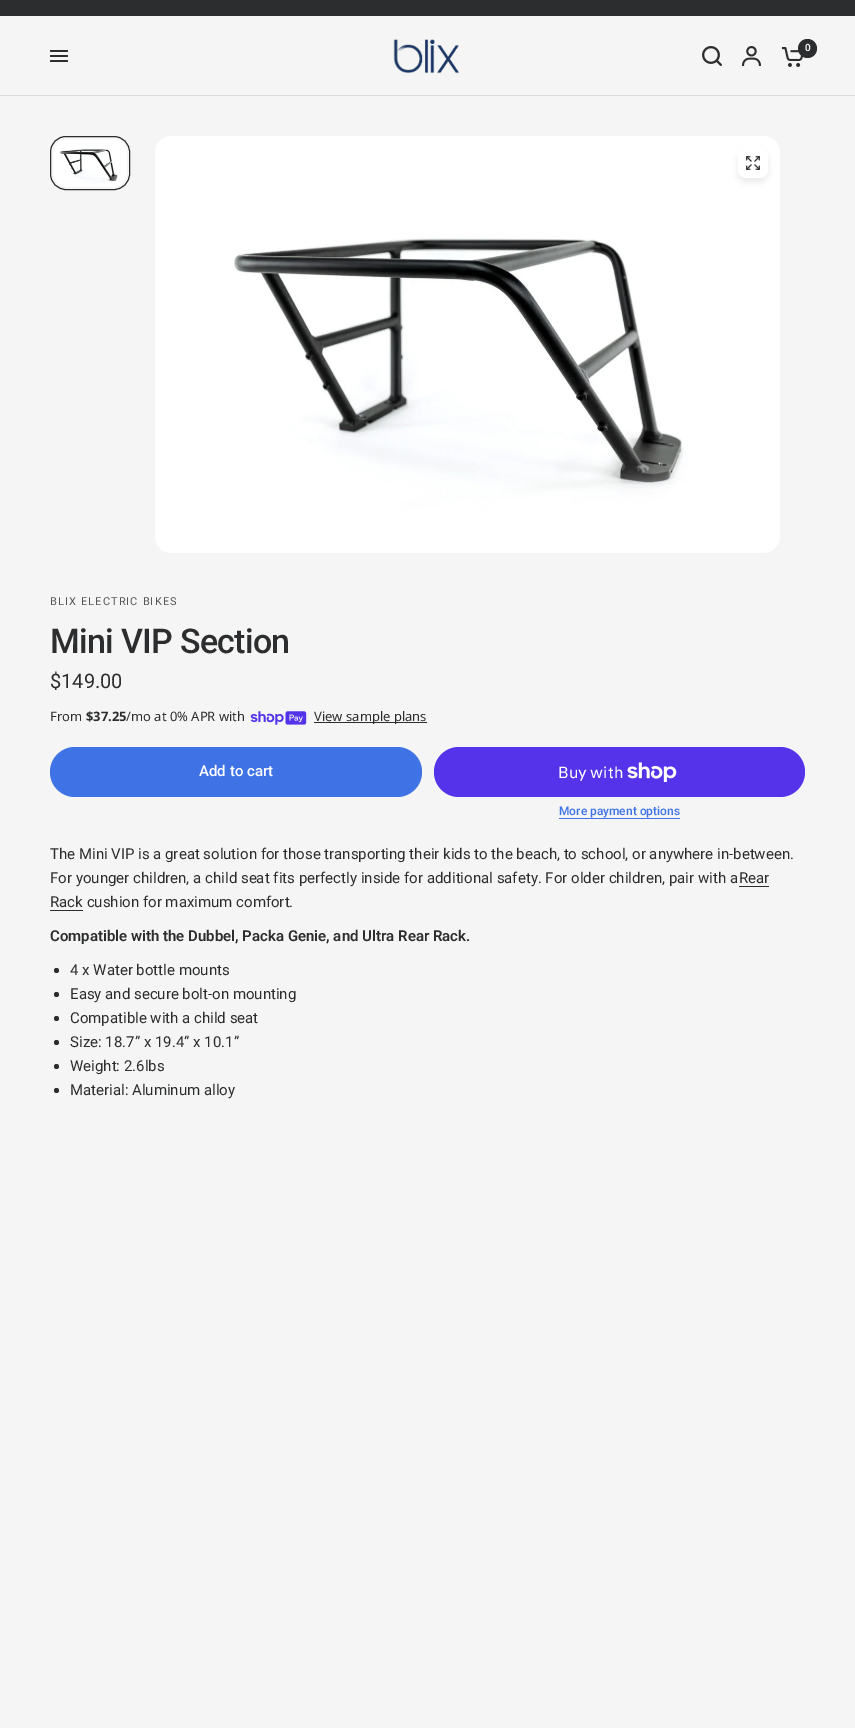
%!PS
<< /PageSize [855 1728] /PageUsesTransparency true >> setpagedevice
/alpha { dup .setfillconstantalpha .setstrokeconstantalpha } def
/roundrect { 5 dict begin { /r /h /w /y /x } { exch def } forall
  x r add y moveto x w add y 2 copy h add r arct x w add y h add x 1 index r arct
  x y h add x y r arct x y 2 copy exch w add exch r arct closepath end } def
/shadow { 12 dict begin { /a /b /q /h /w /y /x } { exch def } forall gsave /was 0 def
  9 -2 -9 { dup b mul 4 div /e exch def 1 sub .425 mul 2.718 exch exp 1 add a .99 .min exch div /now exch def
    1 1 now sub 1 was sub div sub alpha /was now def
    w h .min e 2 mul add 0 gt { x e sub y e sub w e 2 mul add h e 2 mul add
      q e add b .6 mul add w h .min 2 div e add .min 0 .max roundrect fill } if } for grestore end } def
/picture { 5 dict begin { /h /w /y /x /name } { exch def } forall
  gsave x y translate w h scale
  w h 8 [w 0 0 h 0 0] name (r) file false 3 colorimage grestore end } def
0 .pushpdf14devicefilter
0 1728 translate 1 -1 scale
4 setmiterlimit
0.173 0.176 0.18 setrgbcolor
0 0 855 1728 rectfill
0.961 setgray
0 16 855 79 rectfill
(img1.rgb) 393 39 66 35 picture
(img2.rgb) 702 46 20 20 picture
(img3.rgb) 742 46 19 20 picture
(img4.rgb) 781 47 22 20 picture
0.173 0.176 0.18 setrgbcolor
newpath 807.5 48.5 9.5 0 360 arc closepath fill
/Roboto-SemiBold [10 0 0 -10 0 0] selectfont
0.961 setgray
805 51 moveto (0) show
0.173 0.176 0.18 setrgbcolor
50 50 18 2 1 roundrect fill
50 55 18 2 1 roundrect fill
50 60 18 2 1 roundrect fill
0.855 0.863 0.878 setrgbcolor
0 95 855 1 rectfill
0.961 setgray
0 96 855 1632 rectfill
(img5.rgb) 50 136 80 54 picture
3 setlinewidth
51.5 137.5 77 51 14.5 roundrect stroke
0.173 0.176 0.18 setrgbcolor
1 setlinewidth
50.5 136.5 79 53 15.5 roundrect stroke
(img6.rgb) 155 136 625 417 picture
0 setgray
738 152 30 30 8 3 0.08 shadow
1 setgray
738 148 30 30 8 roundrect fill
(img7.rgb) 746 156 14 14 picture
/Roboto-Regular [11 0 0 -11 0 0] selectfont
0.329 0.333 0.337 setrgbcolor
50 605 moveto 1.1 0 (BLIX ELECTRIC BIKES) ashow
/Roboto-Medium [34 0 0 -34 0 0] selectfont
0.173 0.176 0.18 setrgbcolor
50 653 moveto -0.7 0 (Mini VIP Section) ashow
/Roboto-Regular [20 0 0 -20 0 0] selectfont
50 688 moveto ($149.00) show
/NotoSans-Regular [13 0 0 -13 0 0] selectfont
50 721 moveto (From) show
/NotoSans-Bold [13 0 0 -13 0 0] selectfont
86 721 moveto ($37.25) show
/NotoSans-Regular [13 0 0 -13 0 0] selectfont
126 721 moveto (/mo at 0% APR with) show
(img8.rgb) 250 711 57 14 picture
314 722 113 1 rectfill
314 721 moveto (View sample plans) show
0.247 0.447 0.898 setrgbcolor
50 747 372 50 25 roundrect fill
/Roboto-Medium [15 0 0 -15 0 0] selectfont
1 setgray
199 776 moveto (Add to cart) show
0.247 0.447 0.898 setrgbcolor
1.8 setlinewidth
newpath 236 763 moveto 248 763 248 781 236 781 curveto 224 781 224 763 236 763 curveto stroke
0.329 0.2 0.922 setrgbcolor
434 747 371 50 25 roundrect fill
/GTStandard-Regular [16 0 0 -16 0 0] selectfont
1 setgray
558 778 moveto (Buy with) show
(img9.rgb) 627 762 50 20 picture
/Roboto-Medium [12 0 0 -12 0 0] selectfont
0.247 0.447 0.898 setrgbcolor
559 815 moveto (More payment options) show
559 818 121 1 rectfill
/Roboto-Regular [15 0 0 -15 0 0] selectfont
0.173 0.176 0.18 setrgbcolor
50 859 moveto (The Mini VIP is a great solution for those transporting their kids to the beach, to school, or anywhere in-between.) show
50 883 moveto 0.1 0 32 (For younger children, a child seat fits perfectly inside for additional safety. For older children, pair with a) widthshow
739 886 30 1 rectfill
739 883 moveto (Rear) show
50 907 moveto (Rack cushion for maximum comfort.) show
50 910 33 1 rectfill
/Roboto-SemiBold [15 0 0 -15 0 0] selectfont
50 941 moveto (Compatible with the Dubbel, Packa Genie, and Ultra Rear Rack.) show
newpath 56.5 970.5 2.5 0 360 arc closepath fill
/Roboto-Regular [15 0 0 -15 0 0] selectfont
70 975 moveto (4 x Water bottle mounts) show
newpath 56.5 994.5 2.5 0 360 arc closepath fill
70 999 moveto (Easy and secure bolt-on mounting) show
newpath 56.5 1018.5 2.5 0 360 arc closepath fill
70 1023 moveto (Compatible with a child seat) show
newpath 56.5 1042.5 2.5 0 360 arc closepath fill
70 1047 moveto (Size: 18.7” x 19.4” x 10.1”) show
newpath 56.5 1066.5 2.5 0 360 arc closepath fill
70 1071 moveto (Weight: 2.6lbs) show
newpath 56.5 1090.5 2.5 0 360 arc closepath fill
70 1095 moveto (Material: Aluminum alloy) show
.poppdf14devicefilter showpage
